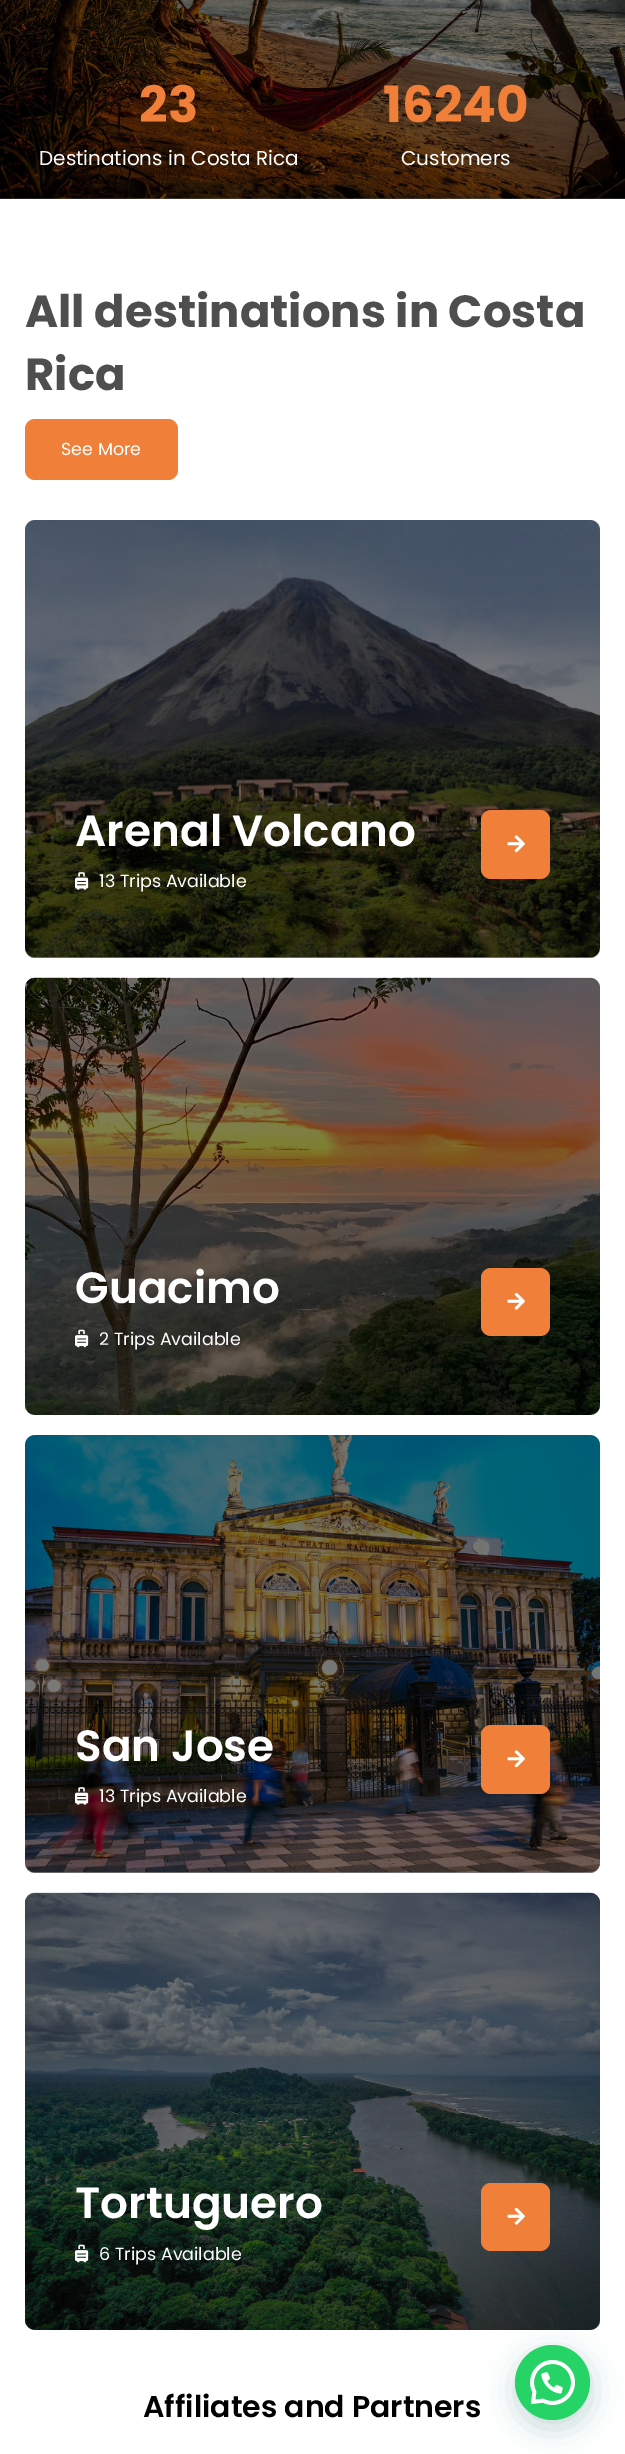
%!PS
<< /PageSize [625 2454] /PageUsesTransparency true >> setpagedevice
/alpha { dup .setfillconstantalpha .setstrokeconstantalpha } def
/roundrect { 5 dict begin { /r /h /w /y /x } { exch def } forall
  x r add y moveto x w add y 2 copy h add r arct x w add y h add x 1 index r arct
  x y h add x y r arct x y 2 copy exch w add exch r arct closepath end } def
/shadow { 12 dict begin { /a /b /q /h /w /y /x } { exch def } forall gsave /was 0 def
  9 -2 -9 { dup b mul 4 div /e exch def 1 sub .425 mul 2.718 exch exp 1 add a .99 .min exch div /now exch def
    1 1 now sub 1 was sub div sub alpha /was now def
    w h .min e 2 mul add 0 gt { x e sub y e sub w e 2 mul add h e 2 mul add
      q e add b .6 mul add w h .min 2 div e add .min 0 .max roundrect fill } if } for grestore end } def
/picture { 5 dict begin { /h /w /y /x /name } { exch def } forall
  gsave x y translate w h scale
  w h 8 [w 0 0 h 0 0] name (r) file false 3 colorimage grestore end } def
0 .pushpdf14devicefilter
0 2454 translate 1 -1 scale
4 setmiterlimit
1 setgray
0 0 625 2454 rectfill
(img1.rgb) 0 0 625 199 picture
/Poppins-Bold [50 0 0 -50 0 0] selectfont
0.941 0.502 0.224 setrgbcolor
139 122 moveto (23) show
/Poppins-Regular [20 0 0 -20 0 0] selectfont
1 setgray
39 165 moveto (Destinations in Costa Rica) show
/Poppins-Bold [50 0 0 -50 0 0] selectfont
0.941 0.502 0.224 setrgbcolor
383 122 moveto (16240) show
/Poppins-Regular [20 0 0 -20 0 0] selectfont
1 setgray
401 165 moveto (Customers) show
/Poppins-Bold [45 0 0 -45 0 0] selectfont
0.306 setgray
25 327 moveto (All destinations in Costa) show
25 390 moveto (Rica) show
0.941 0.502 0.224 setrgbcolor
25 419 153 61 10 roundrect fill
/Poppins-Regular [17.5 0 0 -17.5 0 0] selectfont
1 setgray
61 455 moveto (See More) show
(img2.rgb) 25 520 575 438 picture
0.5 alpha
0 setgray
25 520 575 438 10 roundrect fill
/Poppins-SemiBold [43.75 0 0 -43.75 0 0] selectfont
1 alpha
1 setgray
75 846 moveto (Arenal Volcano) show
(img3.rgb) 75 872 14 18 picture
/Poppins-Regular [17.5 0 0 -17.5 0 0] selectfont
99 887 moveto (13 Trips Available) show
0.941 0.502 0.224 setrgbcolor
481 810 69 69 10 roundrect fill
(img4.rgb) 507 835 18 18 picture
(img5.rgb) 25 977 575 438 picture
0.5 alpha
0 setgray
25 978 575 437 10 roundrect fill
/Poppins-SemiBold [43.75 0 0 -43.75 0 0] selectfont
1 alpha
1 setgray
75 1303 moveto (Guacimo) show
(img6.rgb) 75 1329 14 19 picture
/Poppins-Regular [17.5 0 0 -17.5 0 0] selectfont
99 1345 moveto (2 Trips Available) show
0.941 0.502 0.224 setrgbcolor
481 1268 69 68 10 roundrect fill
(img7.rgb) 507 1292 18 18 picture
(img8.rgb) 25 1435 575 438 picture
0.5 alpha
0 setgray
25 1435 575 438 10 roundrect fill
/Poppins-SemiBold [43.75 0 0 -43.75 0 0] selectfont
1 alpha
1 setgray
75 1761 moveto (San Jose) show
(img9.rgb) 75 1787 14 18 picture
/Poppins-Regular [17.5 0 0 -17.5 0 0] selectfont
99 1802 moveto (13 Trips Available) show
0.941 0.502 0.224 setrgbcolor
481 1725 69 69 10 roundrect fill
(img4.rgb) 507 1750 18 18 picture
(img10.rgb) 25 1892 575 438 picture
0.5 alpha
0 setgray
25 1893 575 437 10 roundrect fill
/Poppins-SemiBold [43.75 0 0 -43.75 0 0] selectfont
1 alpha
1 setgray
75 2218 moveto (Tortuguero) show
(img11.rgb) 75 2244 14 19 picture
/Poppins-Regular [17.5 0 0 -17.5 0 0] selectfont
99 2260 moveto (6 Trips Available) show
0.941 0.502 0.224 setrgbcolor
481 2183 69 68 10 roundrect fill
(img7.rgb) 507 2207 18 18 picture
/Poppins-SemiBold [30 0 0 -30 0 0] selectfont
0 setgray
143 2417 moveto (Affiliates and Partners) show
0.027 0.369 0.329 setrgbcolor
516 2353 75 75 37.5 15 0.24 shadow
0.145 0.827 0.4 setrgbcolor
newpath 552.5 2382.5 37.5 0 360 arc closepath fill
(img12.rgb) 530 2360 45 45 picture
.poppdf14devicefilter showpage
